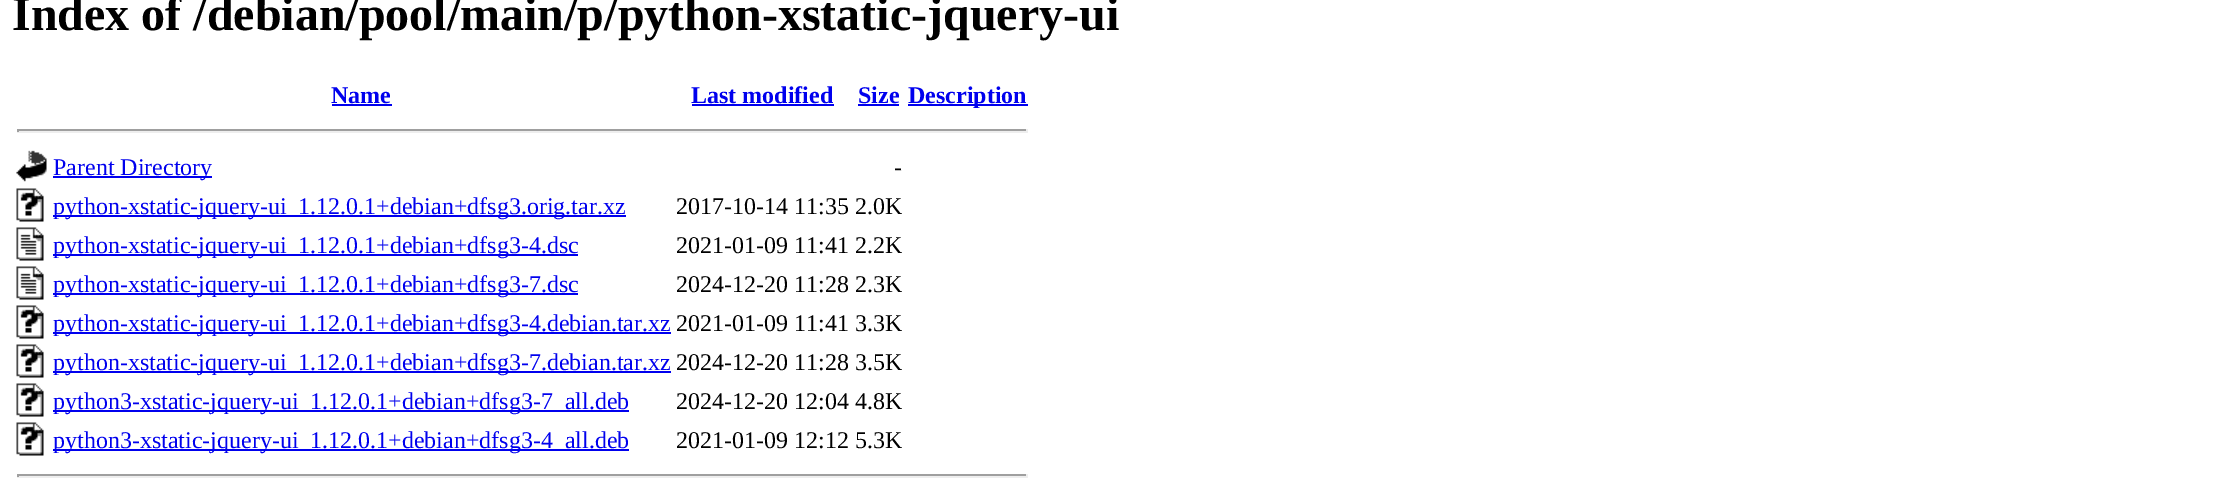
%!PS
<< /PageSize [2220 483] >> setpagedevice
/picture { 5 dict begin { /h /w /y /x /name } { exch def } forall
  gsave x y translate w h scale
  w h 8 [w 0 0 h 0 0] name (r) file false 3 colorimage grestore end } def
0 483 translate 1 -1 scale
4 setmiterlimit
1 setgray
0 0 2220 483 rectfill
/LiberationSerif-Bold [48 0 0 -48 0 0] selectfont
0 setgray
12 30 moveto (Index of /debian/pool/main/p/python-xstatic-jquery-ui) show
/LiberationSerif-Bold [24 0 0 -24 0 0] selectfont
0 0 0.933 setrgbcolor
331 103 moveto (Name) show
332 104 60 2 rectfill
691 103 moveto (Last modified) show
692 104 142 2 rectfill
858 103 moveto (Size) show
858 104 41 2 rectfill
908 104 120 2 rectfill
908 103 moveto (Description) show
0.624 setgray
17 129 1011 2 rectfill
0.933 setgray
1026 129 2 3 rectfill
17 131 1011 2 rectfill
0.624 setgray
17 129 2 3 rectfill
(img1.rgb) 16 150 31 32 picture
0 0 0.933 setrgbcolor
53 176 159 2 rectfill
/LiberationSerif-Regular [24 0 0 -24 0 0] selectfont
53 175 moveto (Parent Directory) show
0 setgray
894 175 moveto (-) show
(img2.rgb) 16 188 28 34 picture
0 0 0.933 setrgbcolor
53 215 573 2 rectfill
53 214 moveto (python-xstatic-jquery-ui_1.12.0.1+debian+dfsg3.orig.tar.xz) show
0 setgray
676 214 moveto (2017-10-14 11:35 2.0K) show
(img3.rgb) 16 227 28 34 picture
0 0 0.933 setrgbcolor
53 254 525 2 rectfill
53 253 moveto (python-xstatic-jquery-ui_1.12.0.1+debian+dfsg3-4.dsc) show
0 setgray
676 253 moveto (2021-01-09 11:41 2.2K) show
(img3.rgb) 16 266 28 34 picture
0 0 0.933 setrgbcolor
53 293 525 2 rectfill
53 292 moveto (python-xstatic-jquery-ui_1.12.0.1+debian+dfsg3-7.dsc) show
0 setgray
676 292 moveto (2024-12-20 11:28 2.3K) show
(img2.rgb) 16 305 28 34 picture
0 0 0.933 setrgbcolor
53 332 618 2 rectfill
53 331 moveto (python-xstatic-jquery-ui_1.12.0.1+debian+dfsg3-4.debian.tar.xz) show
0 setgray
676 331 moveto (2021-01-09 11:41 3.3K) show
(img2.rgb) 16 344 28 34 picture
0 0 0.933 setrgbcolor
53 371 618 2 rectfill
53 370 moveto (python-xstatic-jquery-ui_1.12.0.1+debian+dfsg3-7.debian.tar.xz) show
0 setgray
676 370 moveto (2024-12-20 11:28 3.5K) show
(img2.rgb) 16 383 28 34 picture
0 0 0.933 setrgbcolor
53 410 576 2 rectfill
53 409 moveto (python3-xstatic-jquery-ui_1.12.0.1+debian+dfsg3-7_all.deb) show
0 setgray
676 409 moveto (2024-12-20 12:04 4.8K) show
(img2.rgb) 16 422 28 34 picture
0 0 0.933 setrgbcolor
53 449 576 2 rectfill
53 448 moveto (python3-xstatic-jquery-ui_1.12.0.1+debian+dfsg3-4_all.deb) show
0 setgray
676 448 moveto (2021-01-09 12:12 5.3K) show
0.624 setgray
17 474 1011 2 rectfill
0.933 setgray
1026 474 2 3 rectfill
17 476 1011 2 rectfill
0.624 setgray
17 474 2 3 rectfill
showpage
